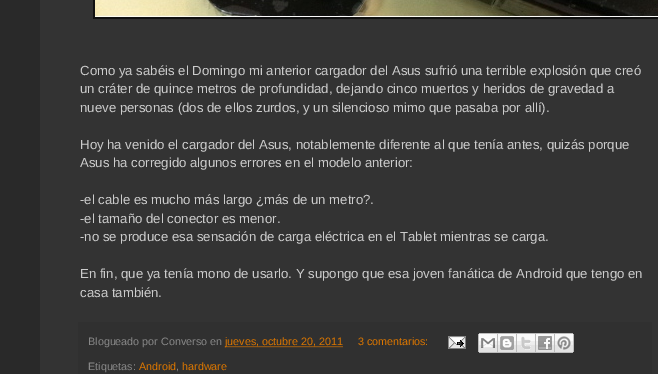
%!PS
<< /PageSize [658 374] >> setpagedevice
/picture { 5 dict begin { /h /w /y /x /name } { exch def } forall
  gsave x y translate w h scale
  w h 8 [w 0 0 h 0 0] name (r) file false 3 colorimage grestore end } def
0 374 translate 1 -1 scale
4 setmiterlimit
0.161 setgray
0 0 658 374 rectfill
0.2 setgray
40 0 618 374 rectfill
0.067 setgray
93 0 565 19 rectfill
(img1.rgb) 95 0 563 17 picture
/LiberationSans-Regular [13.2 0 0 -13.2 0 0] selectfont
0.8 setgray
80 75 moveto (Como ya sabéis el Domingo mi anterior cargador del Asus sufrió una terrible explosión que creó) show
80 93 moveto (un cráter de quince metros de profundidad, dejando cinco muertos y heridos de gravedad a) show
80 112 moveto (nueve personas \(dos de ellos zurdos, y un silencioso mimo que pasaba por allí\).) show
80 149 moveto (Hoy ha venido el cargador del Asus, notablemente diferente al que tenía antes, quizás porque) show
80 167 moveto (Asus ha corregido algunos errores en el modelo anterior:) show
80 204 moveto (-el cable es mucho más largo ¿más de un metro?.) show
80 223 moveto (-el tamaño del conector es menor.) show
80 241 moveto (-no se produce esa sensación de carga eléctrica en el Tablet mientras se carga.) show
80 278 moveto (En fin, que ya tenía mono de usarlo. Y supongo que esa joven fanática de Android que tengo en) show
80 297 moveto (casa también.) show
0.188 setgray
78 322 574 52 rectfill
/LiberationSans-Regular [10.75 0 0 -10.75 0 0] selectfont
0.533 setgray
88 345 moveto (Blogueado por Converso en) show
0.867 0.467 0 setrgbcolor
[1 1] 0 setdash
newpath 225.5 346.5 moveto 343.5 346.5 lineto stroke
225 345 moveto (jueves, octubre 20, 2011) show
358 345 moveto (3 comentarios:) show
(img2.rgb) 448 336 18 13 picture
(img3.rgb) 478 333 20 20 picture
(img4.rgb) 498 333 19 20 picture
(img5.rgb) 517 333 19 20 picture
(img6.rgb) 536 333 19 20 picture
(img7.rgb) 555 333 19 20 picture
0.533 setgray
88 370 moveto (Etiquetas:) show
0.867 0.467 0 setrgbcolor
139 370 moveto (Android) show
0.533 setgray
176 370 moveto (,) show
0.867 0.467 0 setrgbcolor
182 370 moveto (hardware) show
showpage
